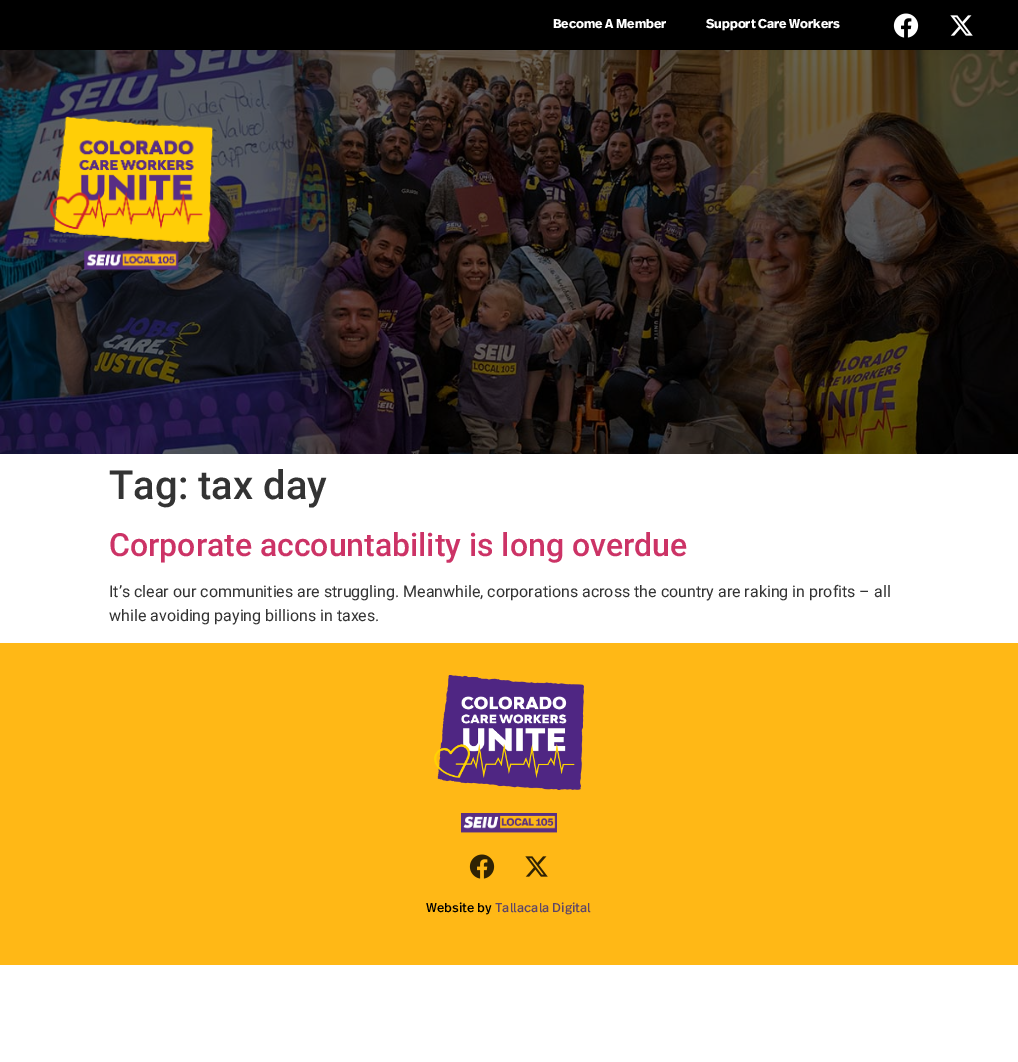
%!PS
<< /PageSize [1018 1062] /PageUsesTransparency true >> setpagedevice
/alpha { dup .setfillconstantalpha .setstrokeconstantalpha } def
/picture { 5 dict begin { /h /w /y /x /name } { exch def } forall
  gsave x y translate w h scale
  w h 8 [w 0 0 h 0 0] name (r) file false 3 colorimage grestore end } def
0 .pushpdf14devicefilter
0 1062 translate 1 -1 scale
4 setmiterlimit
1 setgray
0 0 1018 1062 rectfill
0 setgray
0 0 1018 50 rectfill
/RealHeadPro-Bold [12.75 0 0 -12.75 0 0] selectfont
1 setgray
553 28 moveto (Become A Member) show
706 28 moveto (Support Care Workers) show
(img1.rgb) 893 13 26 25 picture
(img2.rgb) 950 15 23 21 picture
(img3.rgb) 0 50 1018 404 picture
(img4.rgb) 49 116 165 155 picture
0.05 alpha
0 setgray
810 171 28 33 rectfill
/Roboto-Medium [40 0 0 -40 0 0] selectfont
1 alpha
0.2 setgray
109 499 moveto (Tag: tax day) show
/Roboto-Medium [32 0 0 -32 0 0] selectfont
0.8 0.2 0.4 setrgbcolor
109 556 moveto (Corporate accountability is long overdue) show
/Roboto-Regular [16 0 0 -16 0 0] selectfont
0.2 setgray
109 597 moveto (It’s clear our communities are struggling. Meanwhile, corporations across the country are raking in profits – all) show
109 621 moveto (while avoiding paying billions in taxes.) show
1 0.722 0.086 setrgbcolor
0 643 1018 322 rectfill
(img5.rgb) 434 675 150 115 picture
(img6.rgb) 461 813 96 20 picture
(img7.rgb) 469 854 26 25 picture
(img8.rgb) 525 856 23 21 picture
/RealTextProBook-Regular [12.75 0 0 -12.75 0 0] selectfont
0 setgray
426 912 moveto (Website by) show
0.369 0.275 0.404 setrgbcolor
495 912 moveto (Tallacala Digital) show
.poppdf14devicefilter showpage
